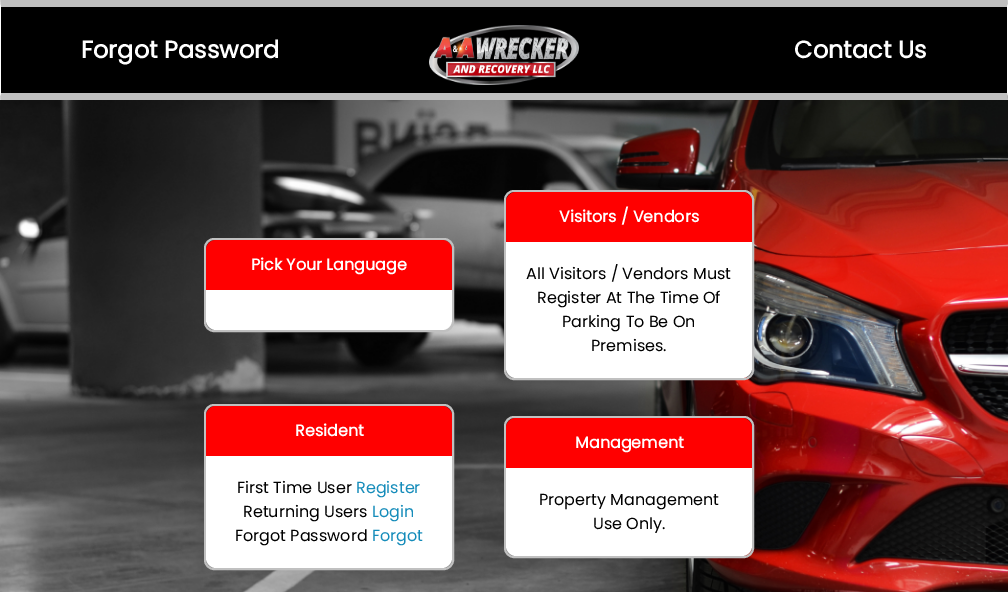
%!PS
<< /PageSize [1008 592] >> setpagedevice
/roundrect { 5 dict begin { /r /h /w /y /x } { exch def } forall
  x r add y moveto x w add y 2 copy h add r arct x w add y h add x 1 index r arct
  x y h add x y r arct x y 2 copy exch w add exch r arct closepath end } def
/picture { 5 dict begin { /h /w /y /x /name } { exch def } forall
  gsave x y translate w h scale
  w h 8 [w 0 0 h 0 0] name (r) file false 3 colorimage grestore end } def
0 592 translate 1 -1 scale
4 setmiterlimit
1 setgray
0 0 1008 592 rectfill
(img2.rgb) 0 0 1008 592 picture
0 setgray
1 7 1006 86 rectfill
0.753 setgray
newpath 0 0 moveto 1008 0 lineto 1007 7 lineto 1 7 lineto closepath fill
1 setgray
newpath 1008 0 moveto 1008 100 lineto 1007 93 lineto 1007 7 lineto closepath fill
0.753 setgray
newpath 1008 100 moveto 0 100 lineto 1 93 lineto 1007 93 lineto closepath fill
1 setgray
newpath 0 100 moveto 0 0 lineto 1 7 lineto 1 93 lineto closepath fill
(img1.rgb) 429 25 150 60 picture
/Poppins-Bold [24 0 0 -24 0 0] selectfont
81 58 moveto (Forgot Password) show
794 58 moveto (Contact Us) show
0.753 setgray
2 setlinewidth
205 239 248 92 9 roundrect stroke
1 0 0 setrgbcolor
newpath 216 240 moveto 442 240 lineto 447.5 240 452 244.5 452 250 curveto 452 290 lineto 206 290 lineto 206 250 lineto 206 244.5 210.5 240 216 240 curveto closepath fill
/Poppins-Bold [16 0 0 -16 0 0] selectfont
1 setgray
251 270 moveto (Pick Your Language) show
newpath 206 290 moveto 452 290 lineto 452 320 lineto 452 325.5 447.5 330 442 330 curveto 216 330 lineto 210.5 330 206 325.5 206 320 curveto closepath fill
0.753 setgray
505 191 248 188 9 roundrect stroke
1 0 0 setrgbcolor
newpath 516 192 moveto 742 192 lineto 747.5 192 752 196.5 752 202 curveto 752 242 lineto 506 242 lineto 506 202 lineto 506 196.5 510.5 192 516 192 curveto closepath fill
1 setgray
559 222 moveto (Visitors / Vendors) show
newpath 506 242 moveto 752 242 lineto 752 368 lineto 752 373.5 747.5 378 742 378 curveto 516 378 lineto 510.5 378 506 373.5 506 368 curveto closepath fill
/Poppins-Regular [16 0 0 -16 0 0] selectfont
0 setgray
526 279 moveto (All Visitors / Vendors Must) show
537 303 moveto (Register At The Time Of) show
562 327 moveto (Parking To Be On) show
591 351 moveto (Premises.) show
0.753 setgray
205 405 248 164 9 roundrect stroke
1 0 0 setrgbcolor
newpath 216 406 moveto 442 406 lineto 447.5 406 452 410.5 452 416 curveto 452 456 lineto 206 456 lineto 206 416 lineto 206 410.5 210.5 406 216 406 curveto closepath fill
/Poppins-Bold [16 0 0 -16 0 0] selectfont
1 setgray
295 436 moveto (Resident) show
newpath 206 456 moveto 452 456 lineto 452 558 lineto 452 563.5 447.5 568 442 568 curveto 216 568 lineto 210.5 568 206 563.5 206 558 curveto closepath fill
/Poppins-Regular [16 0 0 -16 0 0] selectfont
0 setgray
237 493 moveto (First Time User) show
0.082 0.549 0.729 setrgbcolor
356 493 moveto (Register) show
0 setgray
243 517 moveto (Returning Users) show
0.082 0.549 0.729 setrgbcolor
372 517 moveto (Login) show
0 setgray
235 541 moveto (Forgot Password) show
0.082 0.549 0.729 setrgbcolor
372 541 moveto (Forgot) show
0.753 setgray
505 417 248 140 9 roundrect stroke
1 0 0 setrgbcolor
newpath 516 418 moveto 742 418 lineto 747.5 418 752 422.5 752 428 curveto 752 468 lineto 506 468 lineto 506 428 lineto 506 422.5 510.5 418 516 418 curveto closepath fill
/Poppins-Bold [16 0 0 -16 0 0] selectfont
1 setgray
575 448 moveto (Management) show
newpath 506 468 moveto 752 468 lineto 752 546 lineto 752 551.5 747.5 556 742 556 curveto 516 556 lineto 510.5 556 506 551.5 506 546 curveto closepath fill
/Poppins-Regular [16 0 0 -16 0 0] selectfont
0 setgray
539 505 moveto (Property Management) show
593 529 moveto (Use Only.) show
showpage
